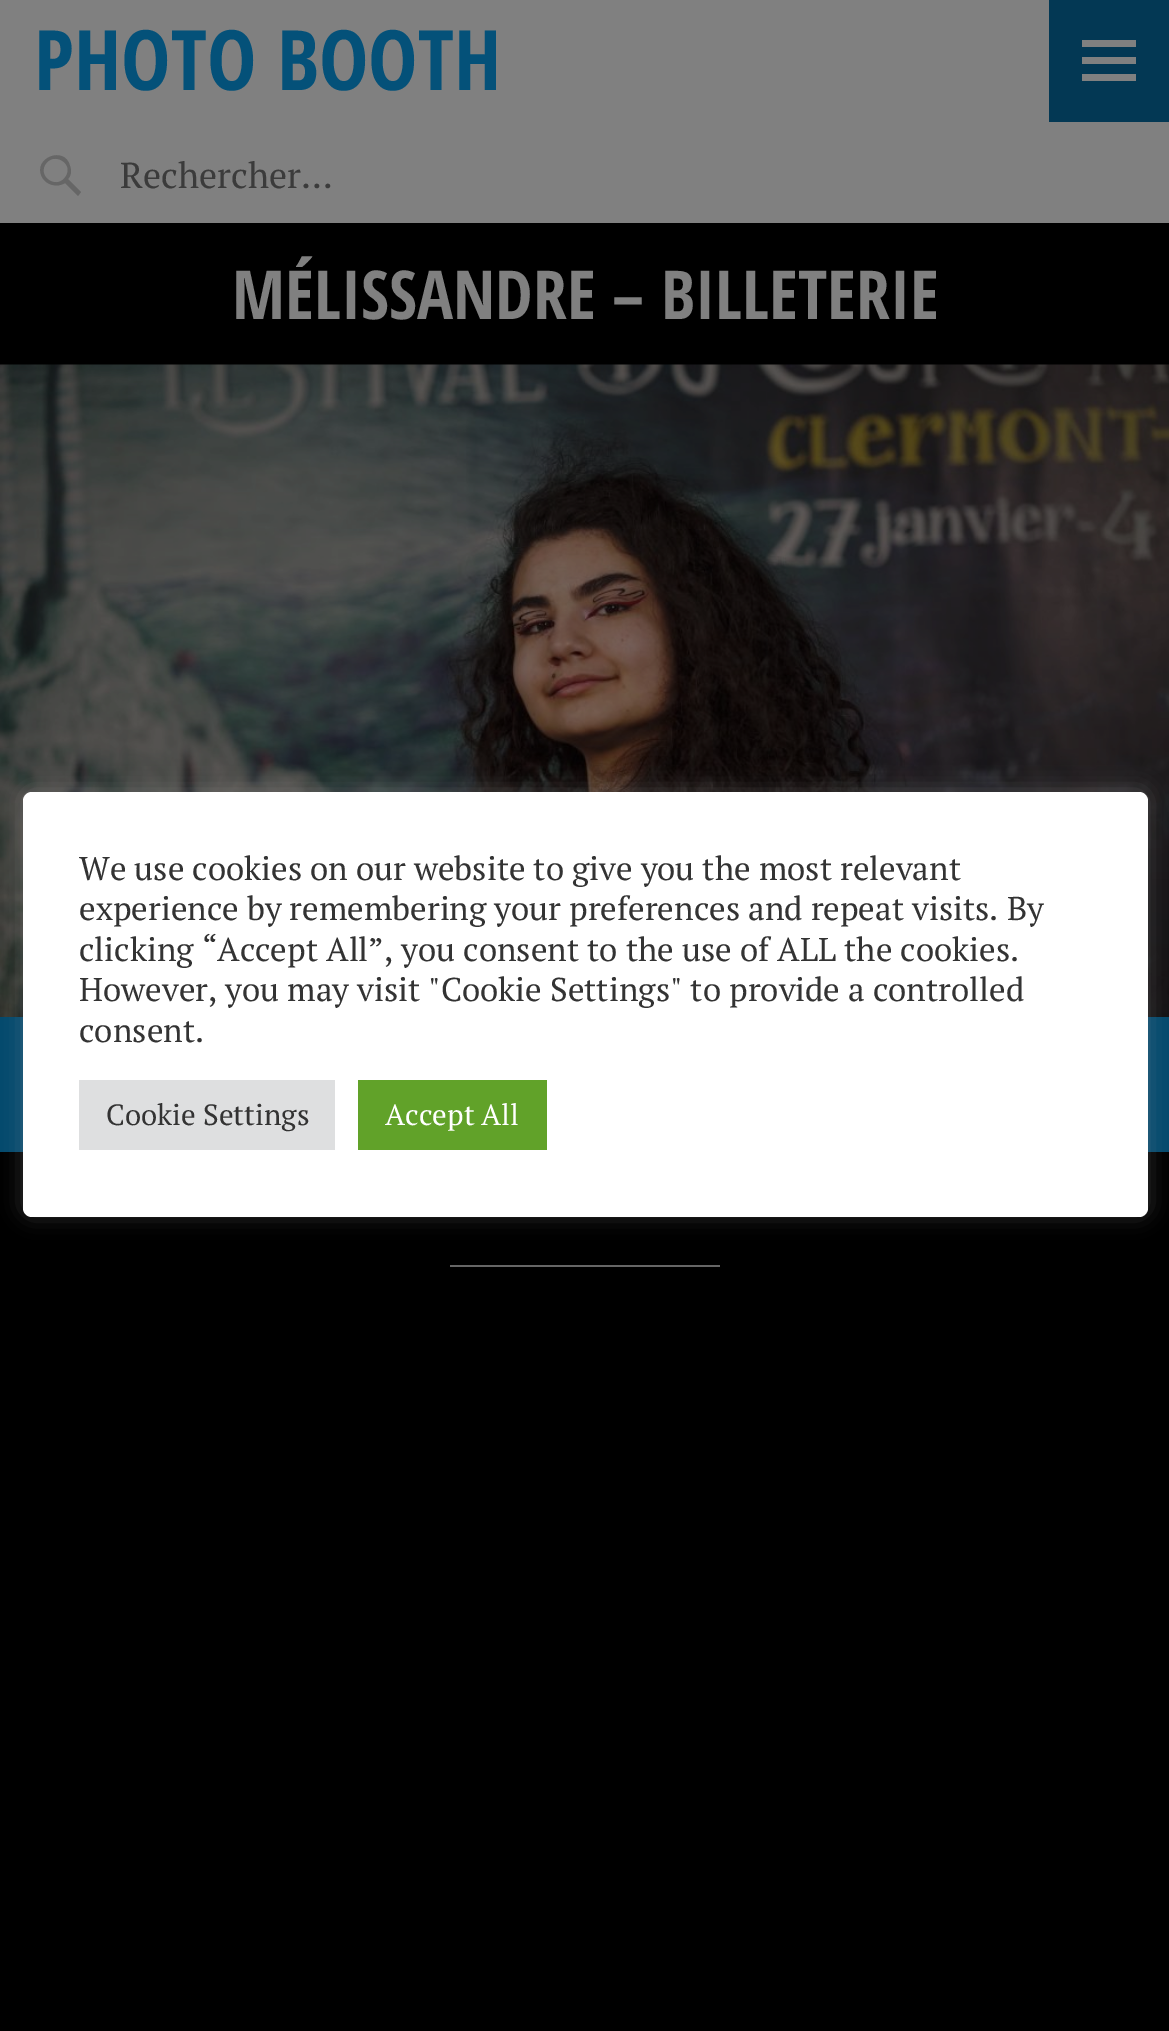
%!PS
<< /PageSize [1169 2031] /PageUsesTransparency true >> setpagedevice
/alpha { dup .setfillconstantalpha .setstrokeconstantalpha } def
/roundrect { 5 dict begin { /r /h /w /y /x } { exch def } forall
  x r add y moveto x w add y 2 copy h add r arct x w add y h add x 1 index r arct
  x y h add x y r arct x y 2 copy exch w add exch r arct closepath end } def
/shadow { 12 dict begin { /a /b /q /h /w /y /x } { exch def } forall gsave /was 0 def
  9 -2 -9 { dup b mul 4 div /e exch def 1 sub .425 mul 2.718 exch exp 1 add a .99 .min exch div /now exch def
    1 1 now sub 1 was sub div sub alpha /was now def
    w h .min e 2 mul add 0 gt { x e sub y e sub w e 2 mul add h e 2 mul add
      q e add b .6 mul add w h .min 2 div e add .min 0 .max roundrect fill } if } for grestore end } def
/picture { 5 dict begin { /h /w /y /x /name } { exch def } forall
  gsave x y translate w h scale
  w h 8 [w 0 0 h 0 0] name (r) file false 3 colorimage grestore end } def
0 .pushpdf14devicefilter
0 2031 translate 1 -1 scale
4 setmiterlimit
0 setgray
0 0 1169 2031 rectfill
0.502 setgray
0 0 1169 223 rectfill
/OpenSansCondensed-Bold [83.25 0 0 -83.25 0 0] selectfont
0.016 0.318 0.475 setrgbcolor
34 90 moveto (PHOTO BOOTH) show
0.012 0.22 0.329 setrgbcolor
1049 0 120 122 rectfill
0.502 setgray
newpath 1082 81 moveto 1082 74 lineto 1136 74 lineto 1136 81 lineto closepath 1082 40 moveto 1136 40 lineto 1136 47 lineto 1082 47 lineto closepath 1082 64 moveto 1082 57 lineto 1136 57 lineto 1136 64 lineto closepath fill
0.4 setgray
newpath 81 192 moveto 78 196 lineto 65 183 lineto 57 188 46 185 42 177 curveto 32 158 65 145 70 166 curveto 72 171 71 176 68 179 curveto closepath 45 165 moveto 38 178 58 190 66 176 curveto 74 163 53 151 45 165 curveto closepath fill
/PTSerif-Regular [36 0 0 -36 0 0] selectfont
0.231 setgray
120 188 moveto (Rechercher…) show
/OpenSansCondensed-Bold [67.5 0 0 -67.5 0 0] selectfont
0.502 setgray
232 319 moveto (MÉLISSANDRE – BILLETERIE) show
(img1.rgb) 0 364 1169 653 picture
0.4 setgray
450 1265 270 2 rectfill
0.012 0.286 0.427 setrgbcolor
0 1017 23 135 rectfill
1148 1017 21 135 rectfill
0.675 0.671 0.671 setrgbcolor
23 790 1125 425 9 11 0.3 shadow
1 setgray
23 792 1125 425 9 roundrect fill
/PTSerif-Regular [33 0 0 -33 0 0] selectfont
0.2 setgray
79 880 moveto (We use cookies on our website to give you the most relevant) show
79 920 moveto (experience by remembering your preferences and repeat visits. By) show
79 961 moveto (clicking “Accept All”, you consent to the use of ALL the cookies.) show
79 1001 moveto (However, you may visit "Cookie Settings" to provide a controlled) show
79 1042 moveto (consent.) show
0.871 0.875 0.878 setrgbcolor
79 1080 256 70 rectfill
/PTSerif-Regular [29.25 0 0 -29.25 0 0] selectfont
0.2 setgray
106 1125 moveto (Cookie Settings) show
0.38 0.635 0.161 setrgbcolor
358 1080 189 70 rectfill
1 setgray
385 1125 moveto (Accept All) show
.poppdf14devicefilter showpage
